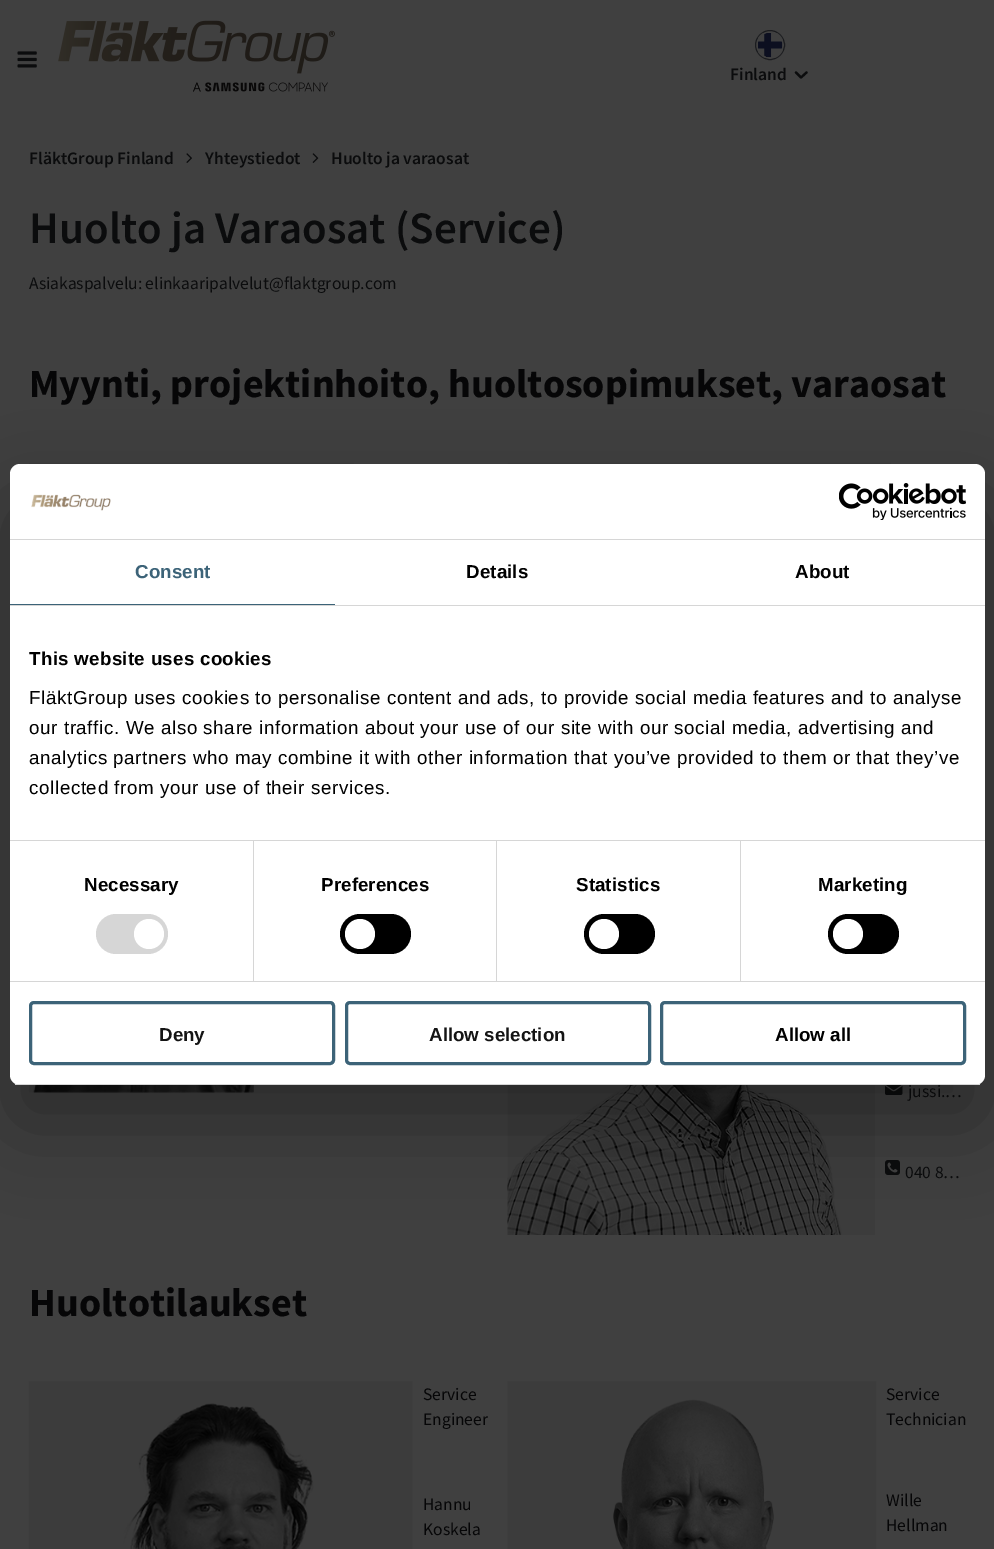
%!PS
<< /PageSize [994 1549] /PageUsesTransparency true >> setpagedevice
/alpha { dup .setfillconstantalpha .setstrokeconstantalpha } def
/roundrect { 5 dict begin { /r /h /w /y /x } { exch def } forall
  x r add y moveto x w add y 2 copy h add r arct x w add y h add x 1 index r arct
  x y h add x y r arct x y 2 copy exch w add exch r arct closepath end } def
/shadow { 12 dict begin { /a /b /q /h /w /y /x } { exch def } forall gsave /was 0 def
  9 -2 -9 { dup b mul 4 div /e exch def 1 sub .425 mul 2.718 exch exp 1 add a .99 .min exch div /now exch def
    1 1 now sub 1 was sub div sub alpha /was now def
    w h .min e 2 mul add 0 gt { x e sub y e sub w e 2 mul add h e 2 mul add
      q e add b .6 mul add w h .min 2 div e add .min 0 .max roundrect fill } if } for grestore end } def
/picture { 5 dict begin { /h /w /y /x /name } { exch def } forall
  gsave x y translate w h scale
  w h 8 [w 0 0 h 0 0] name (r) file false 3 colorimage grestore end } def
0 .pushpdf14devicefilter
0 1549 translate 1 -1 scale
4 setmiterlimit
0.251 setgray
0 0 994 1549 rectfill
(img1.rgb) 17 51 20 17 picture
(img2.rgb) 58 20 277 72 picture
0.106 0.11 0.122 setrgbcolor
newpath 770 45 14.5 0 360 arc closepath stroke
(img3.rgb) 758 33 25 25 picture
/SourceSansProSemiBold-SemiBold [17.5 0 0 -17.5 0 0] selectfont
0.043 0.047 0.051 setrgbcolor
730 80 moveto (Finland) show
2.2 setlinewidth
1 setlinecap
1 setlinejoin
newpath 806.5 72.5 moveto 801 77.5 lineto 796 72.5 lineto stroke
29 164 moveto (FläktGroup Finland) show
(img4.rgb) 186 153 6 10 picture
205 164 moveto (Yhteystiedot) show
(img5.rgb) 312 153 7 10 picture
331 164 moveto (Huolto ja varaosat) show
/SourceSansProSemiBold-SemiBold [45 0 0 -45 0 0] selectfont
29 243 moveto (Huolto ja Varaosat \(Service\)) show
/SourceSansPro-Regular [17.5 0 0 -17.5 0 0] selectfont
29 289 moveto (Asiakaspalvelu: elinkaaripalvelut@flaktgroup.com) show
/SourceSansPro-Bold [40 0 0 -40 0 0] selectfont
0.024 0.024 0.027 setrgbcolor
29 397 moveto (Myynti, projektinhoito, huoltosopimukset, varaosat) show
(img6.rgb) 28 462 326 2 picture
(img7.rgb) 507 462 385 2 picture
(img8.rgb) 28 1085 226 8 picture
(img9.rgb) 507 1085 368 150 picture
(img10.rgb) 885 1085 18 10 picture
/SourceSansPro-Regular [17.5 0 0 -17.5 0 0] selectfont
0.043 0.047 0.051 setrgbcolor
908 1097 moveto (jussi.…) show
(img11.rgb) 885 1160 15 15 picture
905 1178 moveto (040 8…) show
/SourceSansPro-Bold [40 0 0 -40 0 0] selectfont
0.024 0.024 0.027 setrgbcolor
29 1316 moveto (Huoltotilaukset) show
(img12.rgb) 28 1381 385 168 picture
/SourceSansPro-Regular [17.5 0 0 -17.5 0 0] selectfont
423 1400 moveto (Service) show
423 1425 moveto (Engineer) show
423 1510 moveto (Hannu) show
423 1535 moveto (Koskela) show
(img13.rgb) 507 1381 370 168 picture
886 1400 moveto (Service) show
886 1425 moveto (Technician) show
886 1506 moveto (Wille) show
886 1531 moveto (Hellman) show
0 setgray
10 504 975 621 10 42.5 0.3 shadow
1 setgray
10 464 975 621 10 roundrect fill
0.839 setgray
10 539 975 1 rectfill
(img14.rgb) 31 494 80 17 picture
(img15.rgb) 839 483 127 37 picture
10 605 975 1 rectfill
0.235 0.388 0.471 setrgbcolor
10 604 325 1 rectfill
/LiberationSans-Bold [18.75 0 0 -18.75 0 0] selectfont
135 578 moveto 0.1 0 (Consent) ashow
0 setgray
466 578 moveto 0.1 0 (Details) ashow
795 578 moveto 0.1 0 (About) ashow
0.839 setgray
10 840 975 1 rectfill
0 setgray
29 665 moveto 0.3 0 (This website uses cookies) ashow
/LiberationSans-Regular [18.75 0 0 -18.75 0 0] selectfont
29 704 moveto 0.62 0 (FläktGroup uses cookies to personalise content and ads, to provide social media features and to analyse) ashow
29 734 moveto 0.62 0 (our traffic. We also share information about your use of our site with our social media, advertising and) ashow
29 764 moveto 0.62 0 (analytics partners who may combine it with other information that you’ve provided to them or that they’ve) ashow
29 794 moveto 0.62 0 (collected from your use of their services.) ashow
0.839 setgray
10 981 975 1 rectfill
253 841 1 140 rectfill
/LiberationSans-Bold [18.75 0 0 -18.75 0 0] selectfont
0 setgray
84 891 moveto 0.1 0 (Necessary) ashow
0.839 setgray
96 914 72 40 20 roundrect fill
1 setgray
newpath 149 934 15 0 360 arc closepath fill
0.839 setgray
496 841 1 140 rectfill
0 setgray
321 891 moveto 0.1 0 (Preferences) ashow
340 914 71 40 20 roundrect fill
1 setgray
newpath 360 934 15 0 360 arc closepath fill
0.839 setgray
740 841 1 140 rectfill
0 setgray
576 891 moveto 0.1 0 (Statistics) ashow
584 914 71 40 20 roundrect fill
1 setgray
newpath 604 934 15 0 360 arc closepath fill
0 setgray
818 891 moveto 0.1 0 (Marketing) ashow
828 914 71 40 20 roundrect fill
1 setgray
newpath 848 934 15 0 360 arc closepath fill
gsave
10 464 975 621 10 roundrect clip newpath
0.839 setgray
10 1084 975 1 rectfill
grestore
0.235 0.388 0.471 setrgbcolor
3 setlinewidth
0 setlinecap
0 setlinejoin
30.5 1002.5 303 61 3.5 roundrect stroke
0.078 setgray
159 1041 moveto (Deny) show
0.235 0.388 0.471 setrgbcolor
346.5 1002.5 303 61 3.5 roundrect stroke
0.078 setgray
429 1041 moveto (Allow selection) show
0.235 0.388 0.471 setrgbcolor
661.5 1002.5 303 61 3.5 roundrect stroke
0 setgray
775 1041 moveto (Allow all) show
.poppdf14devicefilter showpage
